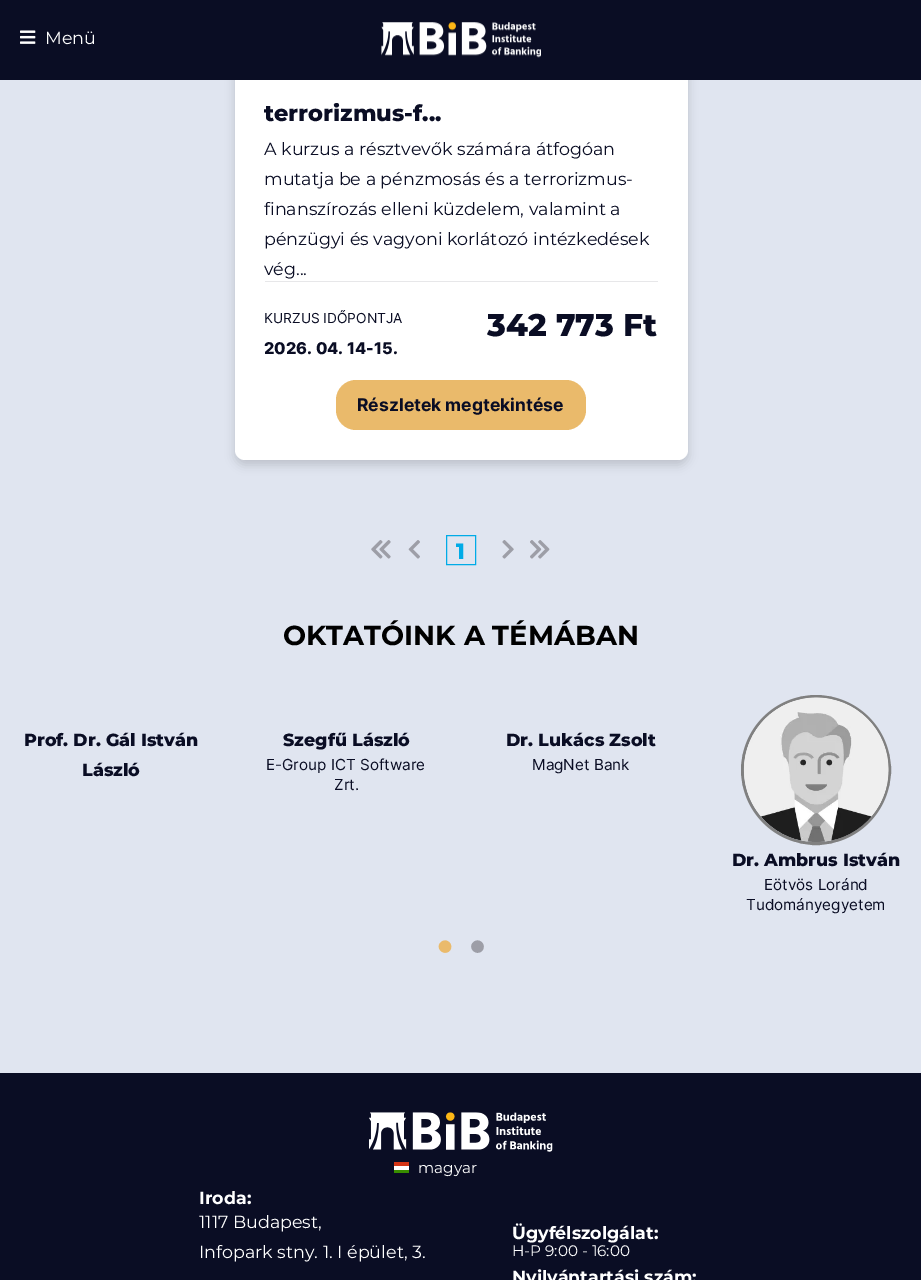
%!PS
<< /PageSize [921 1280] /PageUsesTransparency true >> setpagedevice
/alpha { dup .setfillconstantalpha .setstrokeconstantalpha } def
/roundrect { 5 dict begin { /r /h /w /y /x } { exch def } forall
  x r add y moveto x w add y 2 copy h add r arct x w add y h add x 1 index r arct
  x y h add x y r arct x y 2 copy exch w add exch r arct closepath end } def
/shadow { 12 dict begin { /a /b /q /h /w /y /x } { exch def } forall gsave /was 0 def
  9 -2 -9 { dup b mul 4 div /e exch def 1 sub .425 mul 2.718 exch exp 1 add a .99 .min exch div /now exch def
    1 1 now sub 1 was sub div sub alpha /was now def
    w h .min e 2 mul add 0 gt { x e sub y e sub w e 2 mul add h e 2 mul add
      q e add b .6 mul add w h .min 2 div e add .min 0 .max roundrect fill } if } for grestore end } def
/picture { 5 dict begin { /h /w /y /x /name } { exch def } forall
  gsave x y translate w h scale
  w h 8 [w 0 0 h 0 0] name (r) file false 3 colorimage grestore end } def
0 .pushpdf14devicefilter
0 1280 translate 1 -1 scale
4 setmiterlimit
0.878 0.898 0.941 setrgbcolor
0 0 921 1280 rectfill
0 setgray
235 -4 453 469 10 5 0.15 shadow
1 setgray
235 -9 453 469 10 roundrect fill
0.039 0.051 0.141 setrgbcolor
0 0 921 80 rectfill
(img1.rgb) 20 30 16 14 picture
/Montserrat-Regular [17.5 0 0 -17.5 0 0] selectfont
1 setgray
45 44 moveto (Menü) show
(img2.rgb) 381 22 160 36 picture
/Montserrat-ExtraBold [22.5 0 0 -22.5 0 0] selectfont
0.039 0.051 0.141 setrgbcolor
264 121 moveto (terrorizmus-f...) show
/Montserrat-Regular [17.5 0 0 -17.5 0 0] selectfont
264 155 moveto (A kurzus a résztvevők számára átfogóan) show
264 185 moveto (mutatja be a pénzmosás és a terrorizmus-) show
264 215 moveto (finanszírozás elleni küzdelem, valamint a) show
264 245 moveto (pénzügyi és vagyoni korlátozó intézkedések) show
264 275 moveto (vég...) show
0.906 0.906 0.914 setrgbcolor
265 281 393 1 rectfill
/Inter-Regular [13.75 0 0 -13.75 0 0] selectfont
0.039 0.051 0.141 setrgbcolor
264 323 moveto (KURZUS IDŐPONTJA) show
/Inter-ExtraBold [16.25 0 0 -16.25 0 0] selectfont
264 354 moveto (2026. 04. 14-15.) show
/Montserrat-ExtraBold [31.25 0 0 -31.25 0 0] selectfont
487 336 moveto (342 773 Ft) show
0.918 0.729 0.42 setrgbcolor
336 380 250 50 20 roundrect fill
/Inter-Bold [17.5 0 0 -17.5 0 0] selectfont
0.039 0.051 0.141 setrgbcolor
357 411 moveto (Részletek megtekintése) show
(img3.rgb) 371 540 20 19 picture
(img4.rgb) 408 540 12 19 picture
0 0.671 0.906 setrgbcolor
446.5 535.5 29 29 rectstroke
/Montserrat-ExtraBold [22 0 0 -22 0 0] selectfont
456 559 moveto (1) show
(img5.rgb) 502 540 12 19 picture
(img6.rgb) 530 540 20 19 picture
/Montserrat-Bold [27.4 0 0 -27.4 0 0] selectfont
0 setgray
283 645 moveto (OKTATÓINK A TÉMÁBAN) show
/Montserrat-ExtraBold [17.5 0 0 -17.5 0 0] selectfont
0.039 0.051 0.141 setrgbcolor
24 746 moveto (Prof. Dr. Gál István) show
82 776 moveto (László) show
283 746 moveto (Szegfű László) show
/Inter-Regular [15.25 0 0 -15.25 0 0] selectfont
266 770 moveto (E-Group ICT Software) show
334 790 moveto (Zrt.) show
/Montserrat-ExtraBold [17.5 0 0 -17.5 0 0] selectfont
506 746 moveto (Dr. Lukács Zsolt) show
/Inter-Regular [15.25 0 0 -15.25 0 0] selectfont
532 770 moveto (MagNet Bank) show
0.502 setgray
3 setlinewidth
newpath 816 770 73.5 0 360 arc closepath stroke
(img7.rgb) 743 697 146 145 picture
/Montserrat-ExtraBold [17.5 0 0 -17.5 0 0] selectfont
0.039 0.051 0.141 setrgbcolor
732 866 moveto (Dr. Ambrus István) show
/Inter-Regular [15.25 0 0 -15.25 0 0] selectfont
764 890 moveto (Eötvös Loránd) show
746 910 moveto (Tudományegyetem) show
0.918 0.729 0.42 setrgbcolor
newpath 440.5 942.5 moveto 446.5 936.5 455 945 449.5 951 curveto 443.5 956.5 435 948 440.5 942.5 curveto closepath fill
0.616 0.62 0.655 setrgbcolor
newpath 473 942.5 moveto 479 936.5 487.5 945 482 951 curveto 476 956.5 467.5 948 473 942.5 curveto closepath fill
0.039 0.051 0.141 setrgbcolor
0 1073 921 207 rectfill
(img8.rgb) 369 1112 184 40 picture
1 setgray
394 1166 15 4 rectfill
0.22 0.553 0 setrgbcolor
394 1170 15 3 rectfill
0.831 0.208 0.086 setrgbcolor
394 1162 15 4 rectfill
/Montserrat-Regular [15.25 0 0 -15.25 0 0] selectfont
1 setgray
418 1173 moveto (magyar) show
/Montserrat-Bold [17.5 0 0 -17.5 0 0] selectfont
199 1204 moveto (Iroda:) show
/Montserrat-Regular [17.5 0 0 -17.5 0 0] selectfont
199 1228 moveto (1117 Budapest,) show
199 1258 moveto (Infopark stny. 1. I épület, 3.) show
/Montserrat-Bold [17.5 0 0 -17.5 0 0] selectfont
512 1239 moveto (Ügyfélszolgálat:) show
/Montserrat-Regular [15.25 0 0 -15.25 0 0] selectfont
512 1256 moveto (H-P 9:00 - 16:00) show
/Montserrat-Bold [17.5 0 0 -17.5 0 0] selectfont
512 1283 moveto (Nyilvántartási szám:) show
.poppdf14devicefilter showpage
